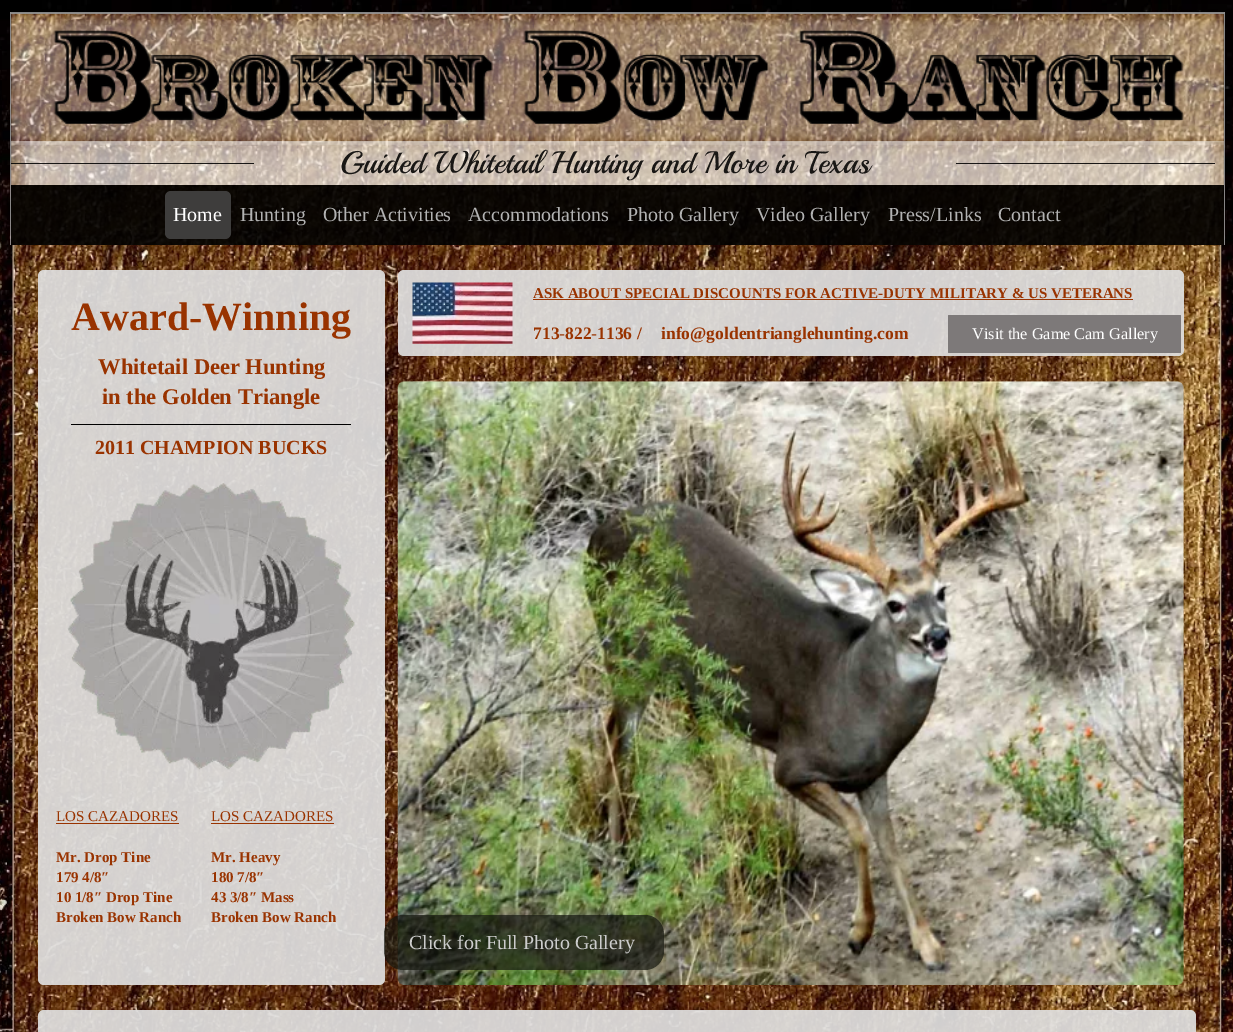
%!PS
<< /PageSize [1233 1032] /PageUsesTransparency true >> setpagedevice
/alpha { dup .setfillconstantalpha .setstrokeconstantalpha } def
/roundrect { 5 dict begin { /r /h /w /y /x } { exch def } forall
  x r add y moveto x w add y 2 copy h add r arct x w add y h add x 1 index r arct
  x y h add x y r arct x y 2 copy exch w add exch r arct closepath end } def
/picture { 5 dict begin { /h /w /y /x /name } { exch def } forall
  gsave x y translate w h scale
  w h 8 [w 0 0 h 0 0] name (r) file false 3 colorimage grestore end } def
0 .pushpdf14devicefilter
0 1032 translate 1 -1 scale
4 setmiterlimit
1 setgray
0 0 1233 1032 rectfill
(img1.rgb) 0 0 1233 1032 picture
(img2.rgb) 11 13 1213 232 picture
0.52 alpha
newpath 10 12 moveto 1225 12 lineto 1224 14 lineto 11 14 lineto closepath fill
newpath 1225 12 moveto 1225 245 lineto 1224 245 lineto 1224 14 lineto closepath fill
newpath 10 245 moveto 10 12 lineto 11 14 lineto 11 245 lineto closepath fill
1 alpha
(img3.rgb) 11 14 1213 131 picture
(img4.rgb) 53 30 1131 94 picture
0.37 alpha
11 141 1213 44 rectfill
1 alpha
(img5.rgb) 16 141 1203 44 picture
(img6.rgb) 18 148 1206 37 picture
0.88 alpha
0 setgray
11 163 243 1 rectfill
/Playball-Regular [31.25 0 0 -31.25 0 0] selectfont
1 alpha
0.098 0.09 0.082 setrgbcolor
340 173 moveto (Guided Whitetail Hunting and More in Texas) show
0.88 alpha
0 setgray
956 163 259 1 rectfill
0.9 alpha
11 185 1213 60 rectfill
1 alpha
0.243 0.239 0.235 setrgbcolor
165 191 66 48 6 roundrect fill
/LiberationSerif-Regular [20 0 0 -20 0 0] selectfont
1 setgray
173 221 moveto (Home) show
0.698 setgray
240 221 moveto (Hunting) show
323 221 moveto (Other Activities) show
468 221 moveto (Accommodations) show
627 221 moveto (Photo Gallery) show
756 221 moveto (Video Gallery) show
888 221 moveto (Press/Links) show
998 221 moveto (Contact) show
(img7.rgb) 12 245 1210 787 picture
0.92 alpha
0.878 setgray
38 270 347 715 6 roundrect fill
/LiberationSerif-Bold [40 0 0 -40 0 0] selectfont
1 alpha
0.6 0.2 0 setrgbcolor
71 330 moveto (Award-Winning) show
/LiberationSerif-Bold [22.5 0 0 -22.5 0 0] selectfont
98 374 moveto (Whitetail Deer Hunting) show
102 404 moveto (in the Golden Triangle) show
0 setgray
71 424 280 1 rectfill
/LiberationSerif-Bold [20 0 0 -20 0 0] selectfont
0.6 0.2 0 setrgbcolor
95 454 moveto (2011 CHAMPION BUCKS) show
(img8.rgb) 67 483 288 287 picture
/LiberationSerif-Regular [15 0 0 -15 0 0] selectfont
56 821 moveto (LOS CAZADORES) show
56 823 123 1 rectfill
/LiberationSerif-Bold [15 0 0 -15 0 0] selectfont
56 862 moveto (Mr. Drop Tine) show
56 882 moveto (179 4/8″) show
56 902 moveto (10 1/8″ Drop Tine) show
56 922 moveto (Broken Bow Ranch) show
/LiberationSerif-Regular [15 0 0 -15 0 0] selectfont
211 821 moveto (LOS CAZADORES) show
211 823 123 1 rectfill
/LiberationSerif-Bold [15 0 0 -15 0 0] selectfont
211 862 moveto (Mr. Heavy) show
211 882 moveto (180 7/8″) show
211 902 moveto (43 3/8″ Mass) show
211 922 moveto (Broken Bow Ranch) show
0.92 alpha
0.878 setgray
398 270 786 86 6 roundrect fill
1 alpha
(img9.rgb) 412 282 101 62 picture
0.6 0.2 0 setrgbcolor
533 298 moveto (ASK ABOUT SPECIAL DISCOUNTS FOR ACTIVE-DUTY MILITARY & US VETERANS) show
533 299 600 1 rectfill
/LiberationSerif-Bold [17.5 0 0 -17.5 0 0] selectfont
533 339 moveto (713-822-1136 /) show
661 339 moveto (info@goldentrianglehunting.com) show
0.49 0.475 0.475 setrgbcolor
948 315 233 38 1 roundrect fill
/LiberationSerif-Regular [16.25 0 0 -16.25 0 0] selectfont
1 setgray
972 339 moveto (Visit the Game Cam Gallery) show
(img10.rgb) 397 381 787 604 picture
0.7 alpha
0.082 0.09 0.059 setrgbcolor
384 915 280 55 19 roundrect fill
/LiberationSerif-Regular [20 0 0 -20 0 0] selectfont
1 alpha
0.8 setgray
409 949 moveto (Click for Full Photo Gallery) show
0.92 alpha
0.878 setgray
38 1010 1158 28 6 roundrect fill
.poppdf14devicefilter showpage
